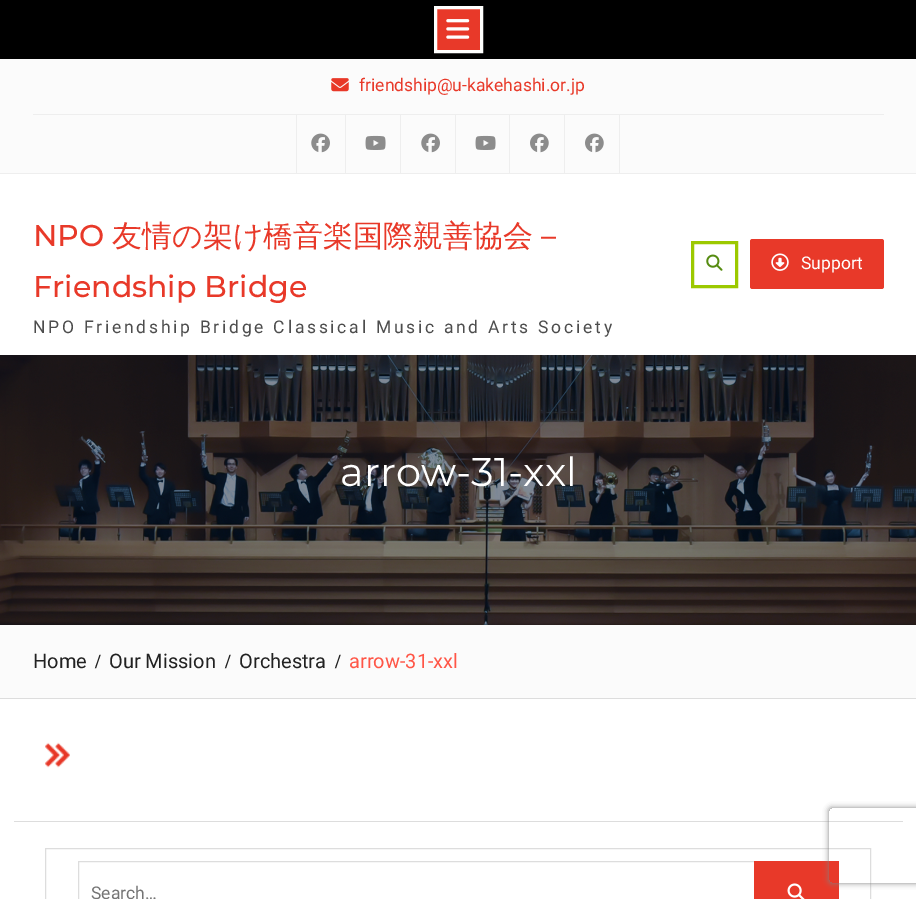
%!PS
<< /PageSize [916 899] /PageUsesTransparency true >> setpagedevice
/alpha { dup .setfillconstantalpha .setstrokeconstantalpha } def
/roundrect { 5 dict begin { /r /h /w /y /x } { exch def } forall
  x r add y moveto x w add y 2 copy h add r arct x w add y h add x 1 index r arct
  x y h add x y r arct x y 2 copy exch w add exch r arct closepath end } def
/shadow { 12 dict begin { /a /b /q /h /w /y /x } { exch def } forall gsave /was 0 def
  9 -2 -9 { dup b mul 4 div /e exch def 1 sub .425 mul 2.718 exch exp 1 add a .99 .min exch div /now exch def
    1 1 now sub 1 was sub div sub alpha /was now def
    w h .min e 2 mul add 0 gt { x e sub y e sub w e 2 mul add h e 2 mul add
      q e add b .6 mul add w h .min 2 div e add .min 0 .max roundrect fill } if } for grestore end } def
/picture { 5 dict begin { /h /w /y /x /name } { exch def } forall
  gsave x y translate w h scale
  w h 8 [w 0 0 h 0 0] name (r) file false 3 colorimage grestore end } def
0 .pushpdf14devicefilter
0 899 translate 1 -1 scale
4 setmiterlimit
1 setgray
0 0 916 899 rectfill
0 setgray
0 0 916 59 rectfill
0.91 0.224 0.161 setrgbcolor
newpath 435.5 7.5 moveto 481.5 7.5 lineto 481.5 51.5 lineto 435.5 51.5 lineto closepath gsave fill grestore
1 1 0.996 setrgbcolor
3 setlinewidth
stroke
(img1.rgb) 446 19 24 20 picture
0.984 setgray
0 59 916 114 rectfill
0.933 setgray
0 173 916 1 rectfill
(img2.rgb) 331 78 18 14 picture
/Roboto-Regular [17.5 0 0 -17.5 0 0] selectfont
0.91 0.224 0.161 setrgbcolor
359 91 moveto (friendship@u-kakehashi.or.jp) show
0.933 setgray
33 114 851 1 rectfill
345 115 1 58 rectfill
296 115 1 58 rectfill
(img3.rgb) 311 133 19 20 picture
400 115 1 58 rectfill
(img4.rgb) 365 135 21 15 picture
455 115 1 58 rectfill
(img3.rgb) 421 133 19 20 picture
509 115 1 58 rectfill
(img4.rgb) 475 135 21 15 picture
564 115 1 58 rectfill
(img5.rgb) 530 133 19 20 picture
619 115 1 58 rectfill
(img5.rgb) 585 133 19 20 picture
/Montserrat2-Thin [30 0 0 -30 0 0] selectfont
0.91 0.224 0.161 setrgbcolor
33 246 moveto (NPO) show
/WenQuanYiZenHei-Medium [30 0 0 -30 0 0] selectfont
112 246 moveto (友情の架け橋音楽国際親善協会) show
/Montserrat2-Thin [30 0 0 -30 0 0] selectfont
541 246 moveto (–) show
33 297 moveto (Friendship Bridge) show
/Roboto-Regular [17.5 0 0 -17.5 0 0] selectfont
0.302 setgray
33 333 moveto 2.75 0 (NPO Friendship Bridge Classical Music and Arts Society) ashow
0.612 0.788 0 setrgbcolor
692.5 242.5 44 44 rectstroke
(img6.rgb) 706 254 17 17 picture
0.91 0.224 0.161 setrgbcolor
750 239 134 50 2.5 roundrect fill
(img7.rgb) 771 253 18 18 picture
1 setgray
801 269 moveto (Support) show
(img8.rgb) 0 355 916 270 picture
/Montserrat-Thin [40 0 0 -40 0 0] selectfont
340 486 moveto (arrow-31-xxl) show
0.984 setgray
0 625 916 73 rectfill
0.867 setgray
0 698 916 1 rectfill
/Roboto-Regular [20 0 0 -20 0 0] selectfont
0.133 setgray
33 668 moveto (Home) show
/LiberationSerif-Bold [20 0 0 -20 0 0] selectfont
95 668 moveto (/) show
/Roboto-Regular [20 0 0 -20 0 0] selectfont
109 668 moveto (Our Mission) show
/LiberationSerif-Bold [20 0 0 -20 0 0] selectfont
225 668 moveto (/) show
/Roboto-Regular [20 0 0 -20 0 0] selectfont
239 668 moveto (Orchestra) show
/LiberationSerif-Bold [20 0 0 -20 0 0] selectfont
335 668 moveto (/) show
/Roboto-Regular [20 0 0 -20 0 0] selectfont
1 0.337 0.278 setrgbcolor
349 668 moveto (arrow-31-xxl) show
0.867 setgray
14 821 889 1 rectfill
(img9.rgb) 45 742 25 26 picture
1 setlinewidth
45.5 848.5 825 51 rectstroke
78.5 861.5 745 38 rectstroke
/Roboto-Regular [17.5 0 0 -17.5 0 0] selectfont
0.459 setgray
91 899 moveto (Search…) show
0.91 0.224 0.161 setrgbcolor
754 861 85 38 rectfill
(img10.rgb) 787 883 18 16 picture
gsave
newpath 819 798 moveto 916 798 lineto 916 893 lineto 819 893 lineto closepath 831.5 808 moveto 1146.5 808 lineto 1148 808 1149 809 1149 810.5 curveto 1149 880.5 lineto 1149 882 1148 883 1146.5 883 curveto 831.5 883 lineto 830 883 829 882 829 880.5 curveto 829 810.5 lineto 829 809 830 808 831.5 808 curveto closepath eoclip newpath
0.502 setgray
829 808 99 75 2.5 3 1 shadow
grestore
.poppdf14devicefilter showpage
